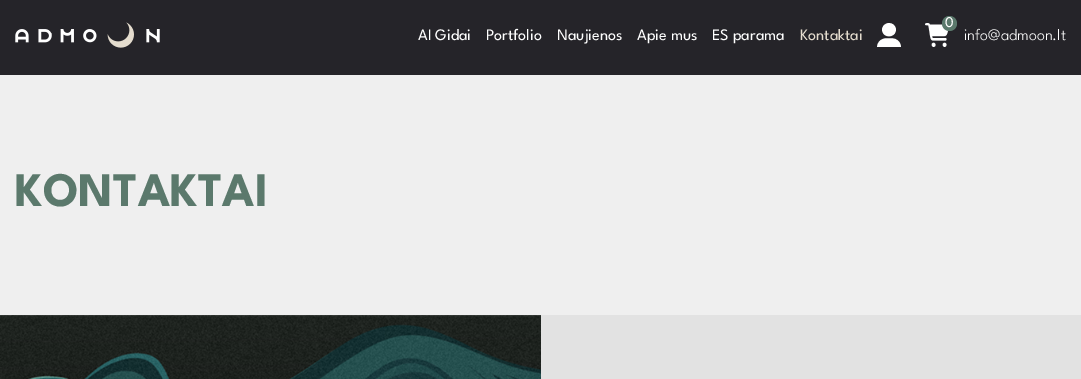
%!PS
<< /PageSize [1081 379] >> setpagedevice
/picture { 5 dict begin { /h /w /y /x /name } { exch def } forall
  gsave x y translate w h scale
  w h 8 [w 0 0 h 0 0] name (r) file false 3 colorimage grestore end } def
0 379 translate 1 -1 scale
4 setmiterlimit
0.937 setgray
0 0 1081 379 rectfill
0.145 0.141 0.161 setrgbcolor
0 0 1081 75 rectfill
(img1.rgb) 15 22 145 26 picture
(img2.rgb) 877 23 24 24 picture
(img3.rgb) 925 23 24 24 picture
0.357 0.475 0.424 setrgbcolor
newpath 949.5 23.5 7.5 0 360 arc closepath fill
/LeagueSpartan-Regular [15 0 0 -15 0 0] selectfont
1 setgray
945 27 moveto (0) show
/LeagueSpartan-Regular [16 0 0 -16 0 0] selectfont
418 40 moveto (AI Gidai) show
486 40 moveto (Portfolio) show
557 40 moveto (Naujienos) show
637 40 moveto (Apie mus) show
712 40 moveto (ES parama) show
0.894 0.863 0.808 setrgbcolor
800 40 moveto (Kontaktai) show
/LeagueSpartan-Light [16 0 0 -16 0 0] selectfont
1 setgray
964 40 moveto (info@admoon.lt) show
/LeagueSpartan-Bold [48 0 0 -48 0 0] selectfont
0.357 0.475 0.424 setrgbcolor
15 206 moveto (KONTAKTAI) show
0.886 setgray
0 315 1081 64 rectfill
(img4.rgb) 0 315 541 64 picture
showpage
